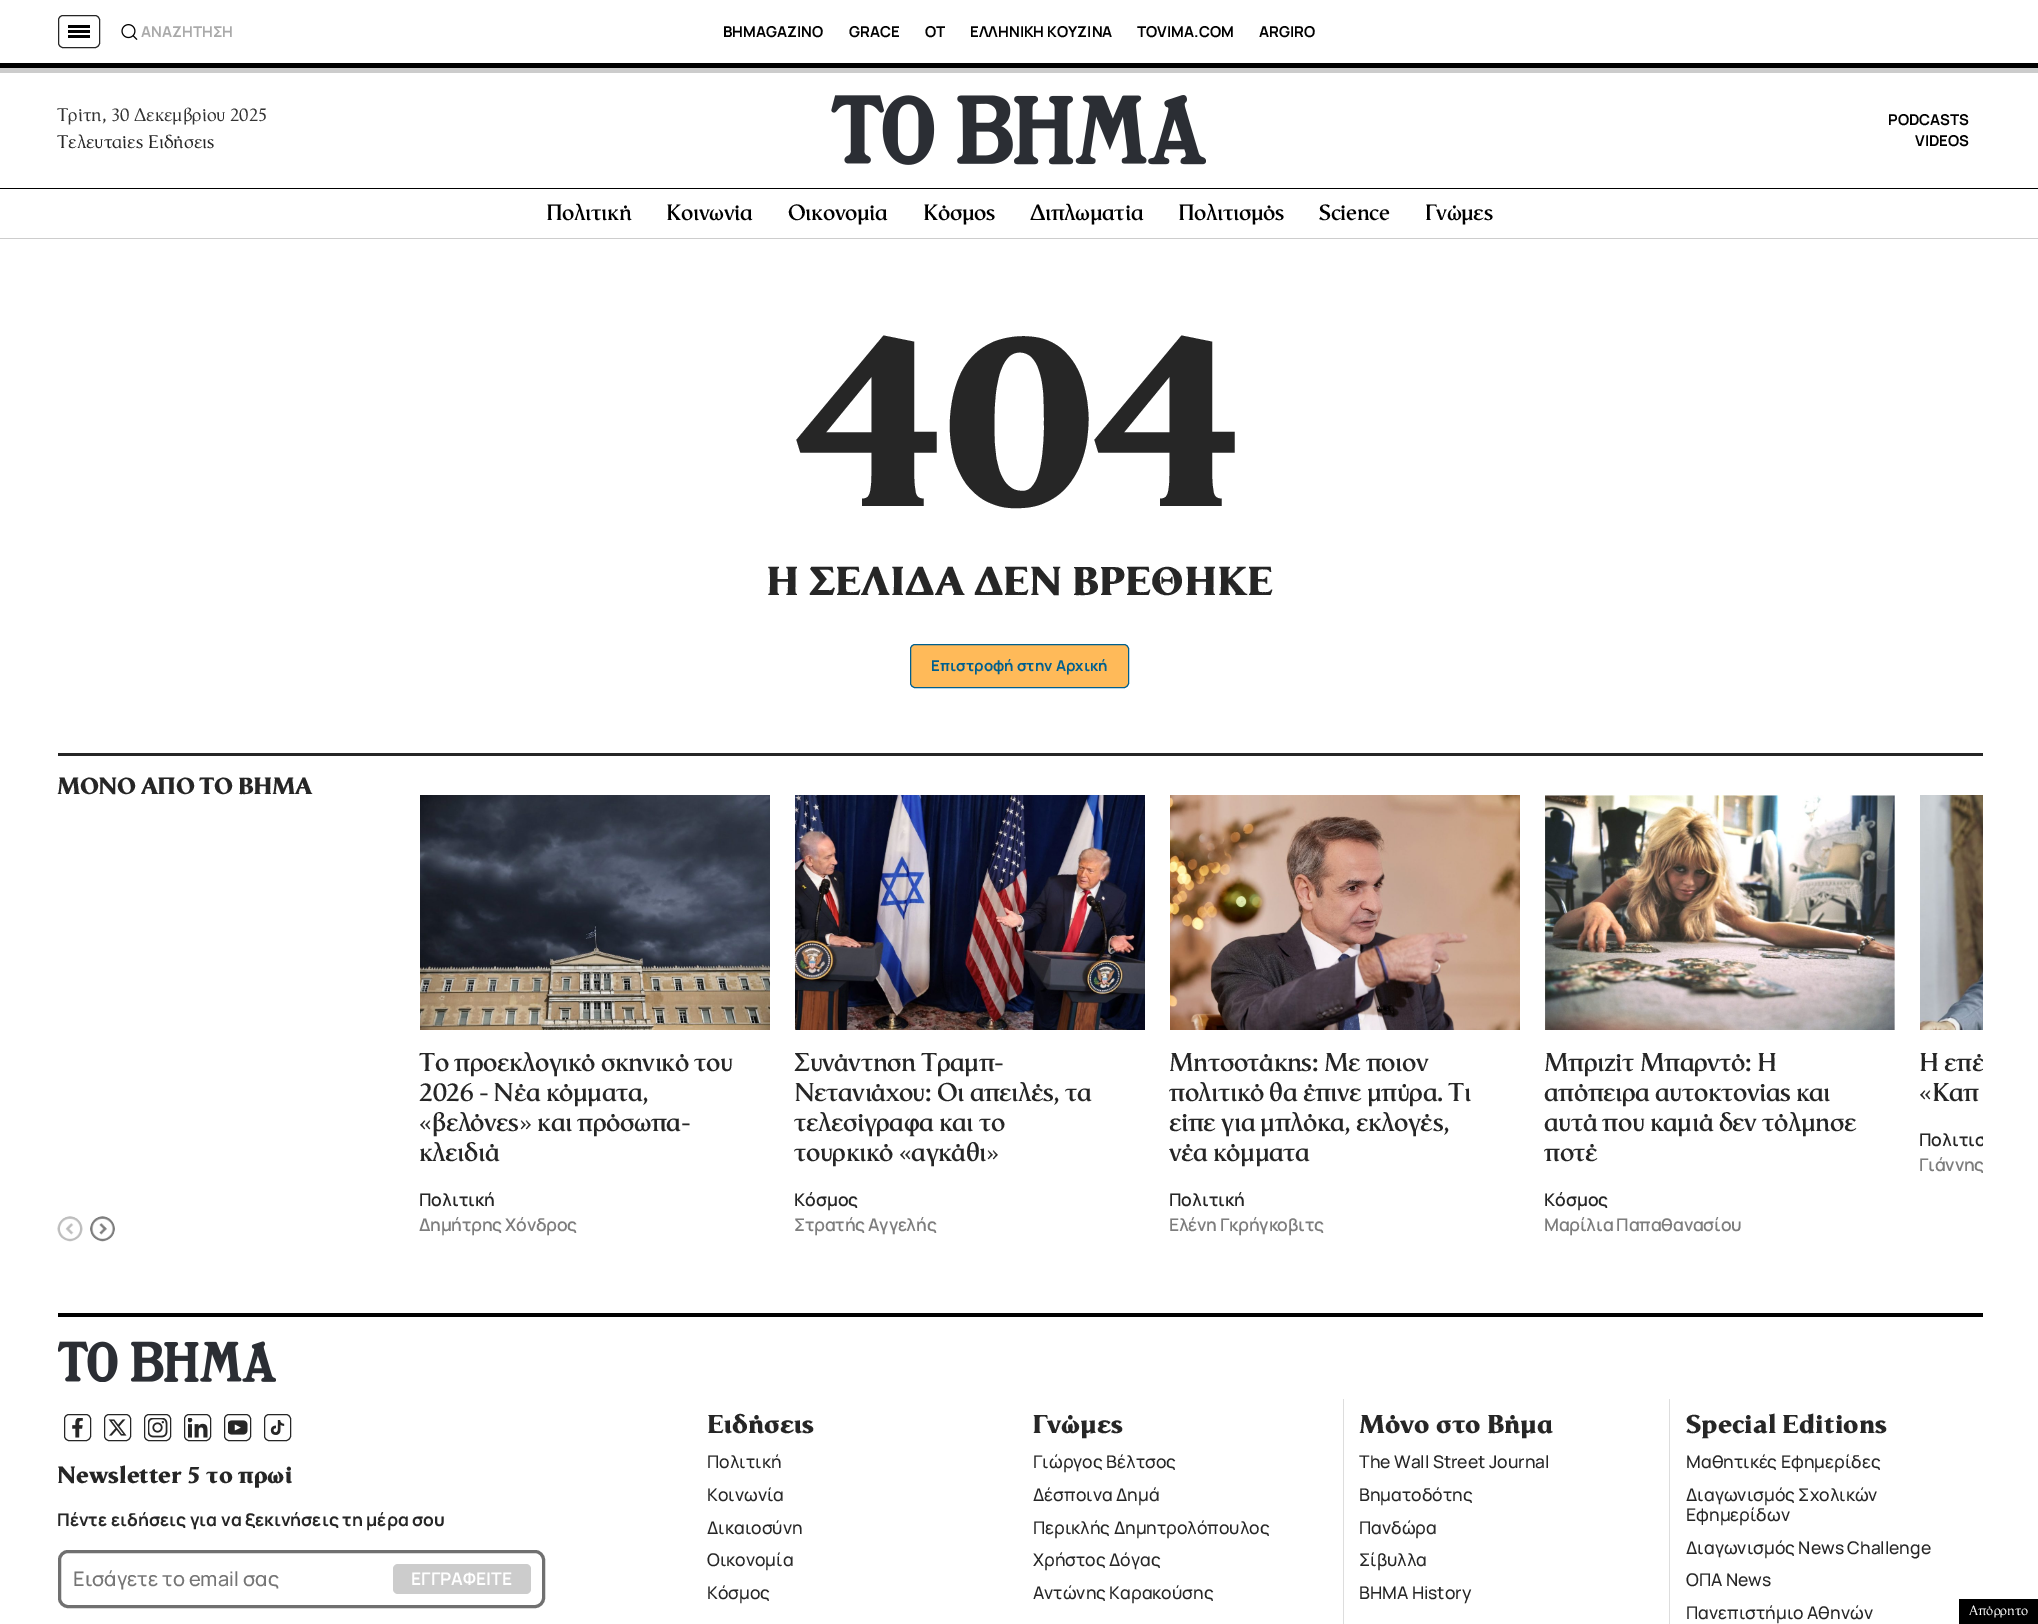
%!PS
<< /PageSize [2038 1624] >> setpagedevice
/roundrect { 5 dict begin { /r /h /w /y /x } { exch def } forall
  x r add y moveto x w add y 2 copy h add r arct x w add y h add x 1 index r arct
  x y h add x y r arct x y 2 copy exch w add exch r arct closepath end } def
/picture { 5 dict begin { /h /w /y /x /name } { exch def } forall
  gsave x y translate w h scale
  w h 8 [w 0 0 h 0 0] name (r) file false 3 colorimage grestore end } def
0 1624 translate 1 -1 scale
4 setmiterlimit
1 setgray
0 0 2038 1624 rectfill
0 setgray
0 63 2038 5 rectfill
0.149 setgray
58.5 15.5 41 32 4.5 roundrect stroke
0 setgray
68 25 22 3 rectfill
68 30 22 3 rectfill
68 35 22 3 rectfill
(img1.rgb) 121 24 17 16 picture
/Manrope-Bold [15 0 0 -15 0 0] selectfont
0.667 setgray
141 37 moveto (ΑΝΑΖΗΤΗΣΗ) show
0 setgray
723 37 moveto (BHMAGAZINO) show
849 37 moveto (GRACE) show
925 37 moveto (OT) show
970 37 moveto (ΕΛΛΗΝΙΚΗ ΚΟΥΖΙΝΑ) show
1137 37 moveto (TOVIMA.COM) show
1259 37 moveto (ARGIRO) show
0.8 setgray
0 68 2038 5 rectfill
0 setgray
0 188 2038 1 rectfill
/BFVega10-Regular [18.75 0 0 -18.75 0 0] selectfont
0.2 setgray
57 121 moveto (Τρίτη, 30 Δεκεμβρίου 2025) show
0.149 setgray
57 148 moveto (Τελευταίες Ειδήσεις) show
(img2.rgb) 831 95 375 70 picture
/Manrope-Bold [15 0 0 -15 0 0] selectfont
0 setgray
1888 125 moveto (PODCASTS) show
1915 146 moveto (VIDEOS) show
/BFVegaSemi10-Bold [22.5 0 0 -22.5 0 0] selectfont
546 220 moveto -0.4 0 (Πολιτική) ashow
666 220 moveto -0.4 0 (Κοινωνία) ashow
788 220 moveto -0.4 0 (Οικονομία) ashow
923 220 moveto -0.4 0 (Κόσμος) ashow
1030 220 moveto -0.4 0 (Διπλωματία) ashow
1178 220 moveto -0.4 0 (Πολιτισμός) ashow
1319 220 moveto -0.4 0 (Science) ashow
1425 220 moveto -0.4 0 (Γνώμες) ashow
0.804 setgray
0 238 2038 1 rectfill
/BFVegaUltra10-Regular [250 0 0 -250 0 0] selectfont
0.149 setgray
796 506 moveto (404) show
/BFVegaUltra10-Regular [40.75 0 0 -40.75 0 0] selectfont
766 595 moveto (Η ΣΕΛΙΔΑ ΔΕΝ ΒΡΕΘΗΚΕ) show
1 0.729 0.349 setrgbcolor
910.5 644.5 218 43 4.5 roundrect gsave fill grestore
0 0.373 0.557 setrgbcolor
stroke
/Manrope-Bold [15 0 0 -15 0 0] selectfont
931 671 moveto 0.05 0 (Επιστροφή στην Αρχική) ashow
0.149 setgray
58 753 1925 3 rectfill
/BFVegaUltra10-Regular [23.75 0 0 -23.75 0 0] selectfont
57 794 moveto -0.5 0 (ΜΟΝΟ ΑΠΟ ΤΟ ΒΗΜΑ) ashow
(img3.rgb) 57 1216 26 26 picture
(img4.rgb) 90 1216 25 26 picture
(img5.rgb) 420 795 350 235 picture
/BFVegaSemi10-Bold [26.25 0 0 -26.25 0 0] selectfont
419 1071 moveto -0.5 0 (Το προεκλογικό σκηνικό του) ashow
419 1101 moveto -0.5 0 (2026 - Νέα κόμματα,) ashow
419 1131 moveto -0.5 0 («βελόνες» και πρόσωπα-) ashow
419 1161 moveto -0.5 0 (κλειδιά) ashow
/Manrope-SemiBold [17.5 0 0 -17.5 0 0] selectfont
419 1206 moveto (Πολιτική) show
0.49 setgray
419 1231 moveto -0.25 0 (Δημήτρης Χόνδρος) ashow
(img6.rgb) 795 795 350 235 picture
/BFVegaSemi10-Bold [26.25 0 0 -26.25 0 0] selectfont
0.149 setgray
794 1071 moveto -0.5 0 (Συνάντηση Τραμπ-) ashow
794 1101 moveto -0.5 0 (Νετανιάχου: Οι απειλές, τα) ashow
794 1131 moveto -0.5 0 (τελεσίγραφα και το) ashow
794 1161 moveto -0.5 0 (τουρκικό «αγκάθι») ashow
/Manrope-SemiBold [17.5 0 0 -17.5 0 0] selectfont
794 1206 moveto (Κόσμος) show
0.49 setgray
794 1231 moveto -0.25 0 (Στρατής Αγγελής) ashow
(img7.rgb) 1170 795 350 235 picture
/BFVegaSemi10-Bold [26.25 0 0 -26.25 0 0] selectfont
0.149 setgray
1169 1071 moveto -0.5 0 (Μητσοτάκης: Με ποιον) ashow
1169 1101 moveto -0.5 0 (πολιτικό θα έπινε μπύρα. Τι) ashow
1169 1131 moveto -0.5 0 (είπε για μπλόκα, εκλογές,) ashow
1169 1161 moveto -0.5 0 (νέα κόμματα) ashow
/Manrope-SemiBold [17.5 0 0 -17.5 0 0] selectfont
1169 1206 moveto (Πολιτική) show
0.49 setgray
1169 1231 moveto -0.25 0 (Ελένη Γκρήγκοβιτς) ashow
(img8.rgb) 1545 795 350 235 picture
/BFVegaSemi10-Bold [26.25 0 0 -26.25 0 0] selectfont
0.149 setgray
1544 1071 moveto -0.5 0 (Μπριζίτ Μπαρντό: Η) ashow
1544 1101 moveto -0.5 0 (απόπειρα αυτοκτονίας και) ashow
1544 1131 moveto -0.5 0 (αυτά που καμιά δεν τόλμησε) ashow
1544 1161 moveto -0.5 0 (ποτέ) ashow
/Manrope-SemiBold [17.5 0 0 -17.5 0 0] selectfont
1544 1206 moveto (Κόσμος) show
0.49 setgray
1544 1231 moveto -0.25 0 (Μαρίλια Παπαθανασίου) ashow
(img9.rgb) 1920 795 63 235 picture
gsave
408 783 1575 467 rectclip
/BFVegaSemi10-Bold [26.25 0 0 -26.25 0 0] selectfont
0.149 setgray
1919 1071 moveto -0.5 0 (Η επέ) ashow
grestore
/BFVegaSemi10-Bold [26.25 0 0 -26.25 0 0] selectfont
0.149 setgray
1919 1101 moveto -0.5 0 («Καπ) ashow
gsave
408 783 1575 467 rectclip
/Manrope-SemiBold [17.5 0 0 -17.5 0 0] selectfont
1919 1146 moveto (Πολιτισ) show
0.49 setgray
1919 1171 moveto -0.25 0 (Γιάννης) ashow
grestore
0 setgray
58 1313 1925 4 rectfill
(img10.rgb) 58 1341 218 41 picture
0.149 setgray
64.5 1414.5 26 26 4.5 roundrect stroke
(img11.rgb) 72 1418 11 20 picture
104.5 1414.5 26 26 4.5 roundrect stroke
(img12.rgb) 108 1419 19 17 picture
144.5 1414.5 26 26 4.5 roundrect stroke
(img13.rgb) 148 1418 20 20 picture
184.5 1414.5 26 26 4.5 roundrect stroke
(img14.rgb) 188 1418 20 20 picture
224.5 1414.5 26 26 4.5 roundrect stroke
(img15.rgb) 228 1420 20 15 picture
264.5 1414.5 26 26 4.5 roundrect stroke
(img16.rgb) 270 1420 15 15 picture
/BFVegaUltra10-Regular [23.75 0 0 -23.75 0 0] selectfont
57 1483 moveto (Newsletter 5 το πρωί) show
/Manrope-Bold [17.5 0 0 -17.5 0 0] selectfont
57 1526 moveto (Πέντε ειδήσεις για να ξεκινήσεις τη μέρα σου) show
0.439 setgray
3 setlinewidth
59.5 1551.5 484 55 8.5 roundrect stroke
/Manrope-Medium [20 0 0 -20 0 0] selectfont
0.459 setgray
73 1586 moveto (Εισάγετε το email σας) show
0.8 setgray
393 1564 138 30 5 roundrect fill
/Manrope-Bold [17.5 0 0 -17.5 0 0] selectfont
1 setgray
411 1585 moveto (ΕΓΓΡΑΦΕΙΤΕ) show
/BFVegaUltra10-Regular [26.25 0 0 -26.25 0 0] selectfont
0.149 setgray
707 1433 moveto (Ειδήσεις) show
/Manrope-Medium [17.5 0 0 -17.5 0 0] selectfont
707 1468 moveto (Πολιτική) show
707 1501 moveto (Κοινωνία) show
707 1534 moveto (Δικαιοσύνη) show
707 1566 moveto (Οικονομία) show
707 1599 moveto (Κόσμος) show
0.867 setgray
1343 1399 1 225 rectfill
/BFVegaUltra10-Regular [26.25 0 0 -26.25 0 0] selectfont
0.149 setgray
1033 1433 moveto (Γνώμες) show
/Manrope-Medium [17.5 0 0 -17.5 0 0] selectfont
1033 1468 moveto (Γιώργος Βέλτσος) show
1033 1501 moveto (Δέσποινα Δημά) show
1033 1534 moveto (Περικλής Δημητρολόπουλος) show
1033 1566 moveto (Χρήστος Δόγας) show
1033 1599 moveto (Αντώνης Καρακούσης) show
0.867 setgray
1669 1399 1 225 rectfill
/BFVegaUltra10-Regular [26.25 0 0 -26.25 0 0] selectfont
0.149 setgray
1359 1433 moveto (Μόνο στο Βήμα) show
/Manrope-Medium [17.5 0 0 -17.5 0 0] selectfont
1359 1468 moveto (The Wall Street Journal) show
1359 1501 moveto (Βηματοδότης) show
1359 1534 moveto (Πανδώρα) show
1359 1566 moveto (Σίβυλλα) show
1359 1599 moveto (ΒΗΜΑ History) show
/BFVegaUltra10-Regular [26.25 0 0 -26.25 0 0] selectfont
1686 1433 moveto (Special Editions) show
/Manrope-Medium [17.5 0 0 -17.5 0 0] selectfont
1686 1468 moveto (Μαθητικές Εφημερίδες) show
1686 1501 moveto (Διαγωνισμός Σχολικών) show
1686 1521 moveto (Εφημερίδων) show
1686 1554 moveto (Διαγωνισμός News Challenge) show
1686 1586 moveto (ΟΠΑ News) show
1686 1619 moveto (Πανεπιστήμιο Αθηνών) show
0 setgray
1959 1599 79 25 rectfill
/BFVega10-Regular [13.75 0 0 -13.75 0 0] selectfont
1 setgray
1969 1615 moveto (Απόρρητο) show
showpage
